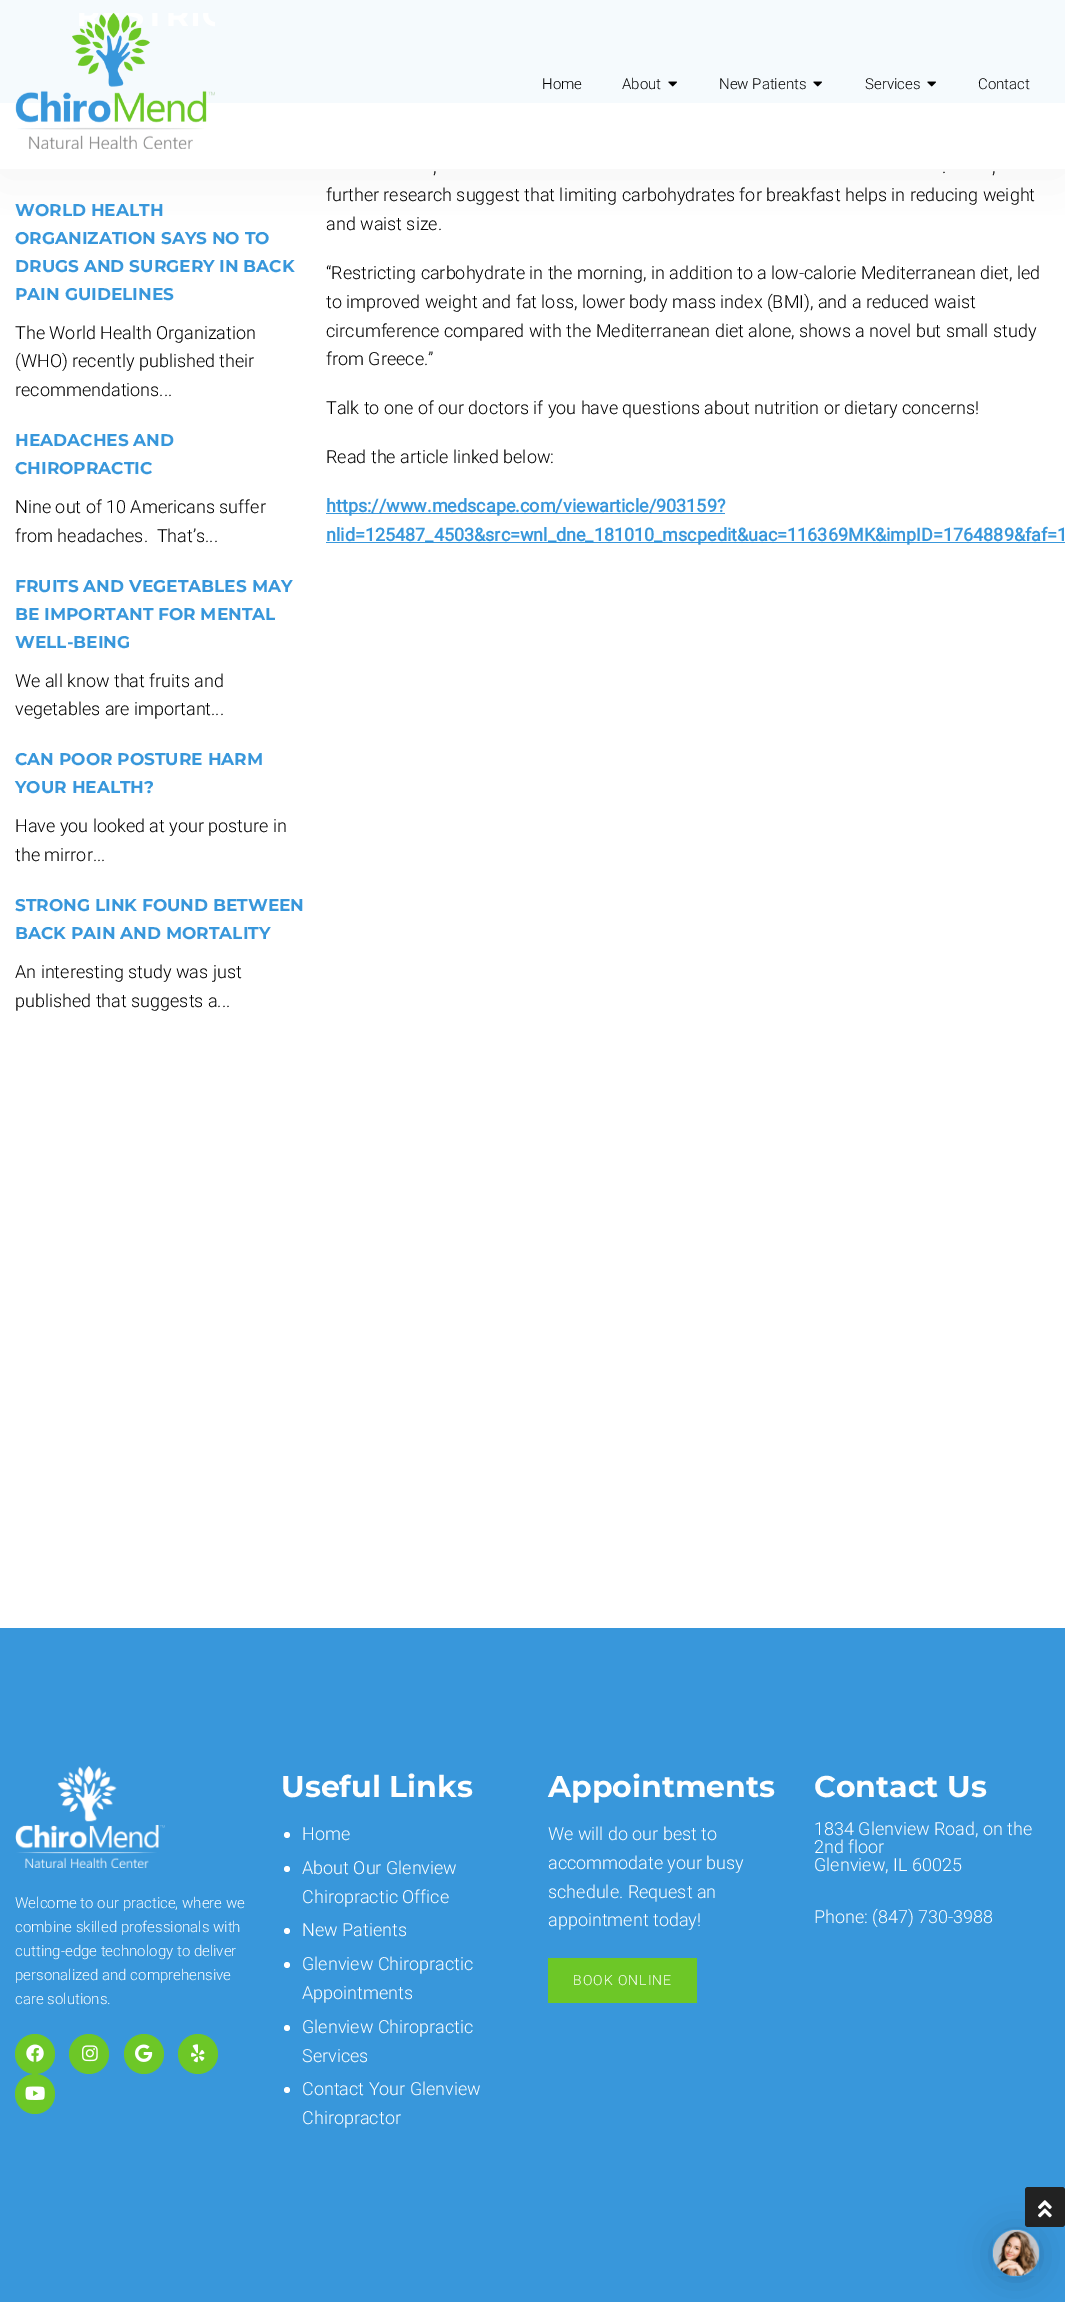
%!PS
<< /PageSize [1065 2302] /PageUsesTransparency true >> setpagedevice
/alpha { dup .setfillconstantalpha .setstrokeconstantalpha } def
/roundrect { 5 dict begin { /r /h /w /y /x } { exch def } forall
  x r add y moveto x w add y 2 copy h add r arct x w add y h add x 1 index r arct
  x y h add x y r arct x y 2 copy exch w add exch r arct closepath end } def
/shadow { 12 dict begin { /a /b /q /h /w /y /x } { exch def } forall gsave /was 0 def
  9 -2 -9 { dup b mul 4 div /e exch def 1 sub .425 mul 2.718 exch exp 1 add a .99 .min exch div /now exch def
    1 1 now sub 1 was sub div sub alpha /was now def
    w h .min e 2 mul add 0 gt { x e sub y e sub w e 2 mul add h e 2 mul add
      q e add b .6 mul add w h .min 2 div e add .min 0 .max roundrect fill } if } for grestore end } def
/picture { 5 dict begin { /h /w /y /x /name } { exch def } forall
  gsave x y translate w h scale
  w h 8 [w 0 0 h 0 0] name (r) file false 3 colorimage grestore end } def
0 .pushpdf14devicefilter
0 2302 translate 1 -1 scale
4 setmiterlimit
1 setgray
0 0 1065 2302 rectfill
0.22 0.592 0.859 setrgbcolor
0 0 1065 103 rectfill
gsave
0 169 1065 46 rectclip
0.82 setgray
0 2 1065 171 0 30 0.25 shadow
grestore
0.95 alpha
1 setgray
0 0 1065 103 rectfill
1 alpha
(img1.rgb) 15 13 200 136 picture
/Roboto-Light [15 0 0 -15 0 0] selectfont
0 setgray
542 89 moveto (Home) show
622 89 moveto (About) show
(img2.rgb) 668 81 9 6 picture
719 89 moveto (New Patients) show
(img2.rgb) 813 81 9 6 picture
865 89 moveto (Services) show
(img2.rgb) 927 81 9 6 picture
978 89 moveto (Contact) show
/Montserrat-Bold [17 0 0 -17 0 0] selectfont
0.22 0.592 0.859 setrgbcolor
15 216 moveto (WORLD HEALTH) show
15 244 moveto (ORGANIZATION SAYS NO TO) show
15 272 moveto (DRUGS AND SURGERY IN BACK) show
15 300 moveto (PAIN GUIDELINES) show
/Roboto-Light [18 0 0 -18 0 0] selectfont
0 setgray
15 339 moveto (The World Health Organization) show
15 367 moveto (\(WHO\) recently published their) show
15 396 moveto (recommendations...) show
/Montserrat-Bold [17 0 0 -17 0 0] selectfont
0.22 0.592 0.859 setrgbcolor
15 446 moveto (HEADACHES AND) show
15 474 moveto (CHIROPRACTIC) show
/Roboto-Light [18 0 0 -18 0 0] selectfont
0 setgray
15 513 moveto (Nine out of 10 Americans suffer) show
15 542 moveto (from headaches.  That’s...) show
/Montserrat-Bold [17 0 0 -17 0 0] selectfont
0.22 0.592 0.859 setrgbcolor
15 592 moveto (FRUITS AND VEGETABLES MAY) show
15 620 moveto (BE IMPORTANT FOR MENTAL) show
15 648 moveto (WELL-BEING) show
/Roboto-Light [18 0 0 -18 0 0] selectfont
0 setgray
15 687 moveto (We all know that fruits and) show
15 715 moveto (vegetables are important...) show
/Montserrat-Bold [17 0 0 -17 0 0] selectfont
0.22 0.592 0.859 setrgbcolor
15 765 moveto (CAN POOR POSTURE HARM) show
15 793 moveto (YOUR HEALTH?) show
/Roboto-Light [18 0 0 -18 0 0] selectfont
0 setgray
15 832 moveto (Have you looked at your posture in) show
15 861 moveto (the mirror...) show
/Montserrat-Bold [17 0 0 -17 0 0] selectfont
0.22 0.592 0.859 setrgbcolor
15 911 moveto (STRONG LINK FOUND BETWEEN) show
15 939 moveto (BACK PAIN AND MORTALITY) show
/Roboto-Light [18 0 0 -18 0 0] selectfont
0 setgray
15 978 moveto (An interesting study was just) show
15 1007 moveto (published that suggests a...) show
433 173 moveto (,) show
942 173 moveto (.) show
992 173 moveto (,) show
326 201 moveto (further research suggest that limiting carbohydrates for breakfast helps in reducing weight) show
326 230 moveto (and waist size.) show
326 279 moveto (“Restricting carbohydrate in the morning, in addition to a low-calorie Mediterranean diet, led) show
326 308 moveto (to improved weight and fat loss, lower body mass index \(BMI\), and a reduced waist) show
326 337 moveto (circumference compared with the Mediterranean diet alone, shows a novel but small study) show
326 365 moveto (from Greece.”) show
326 414 moveto (Talk to one of our doctors if you have questions about nutrition or dietary concerns!) show
326 463 moveto (Read the article linked below:) show
0.22 0.592 0.859 setrgbcolor
326 513 399 1 rectfill
/Roboto-Bold [18 0 0 -18 0 0] selectfont
326 512 moveto (https://www.medscape.com/viewarticle/903159?) show
326 542 739 1 rectfill
326 541 moveto (nlid=125487_4503&src=wnl_dne_181010_mscpedit&uac=116369MK&impID=1764889&faf=1) show
0 1628 1065 674 rectfill
/Montserrat-Bold [30 0 0 -30 0 0] selectfont
1 setgray
281 1797 moveto (Useful Links) show
newpath 287 1835 3 0 360 arc closepath fill
/Roboto-Light [18 0 0 -18 0 0] selectfont
302 1840 moveto (Home) show
newpath 287 1869 3 0 360 arc closepath fill
302 1874 moveto (About Our Glenview) show
302 1903 moveto (Chiropractic Office) show
newpath 287 1931 3 0 360 arc closepath fill
302 1936 moveto (New Patients) show
newpath 287 1965 3 0 360 arc closepath fill
302 1970 moveto (Glenview Chiropractic) show
302 1999 moveto (Appointments) show
newpath 287 2028 3 0 360 arc closepath fill
302 2033 moveto (Glenview Chiropractic) show
302 2062 moveto (Services) show
newpath 287 2090 3 0 360 arc closepath fill
302 2095 moveto (Contact Your Glenview) show
302 2124 moveto (Chiropractor) show
/Montserrat-Bold [30 0 0 -30 0 0] selectfont
548 1797 moveto (Appointments) show
/Roboto-Light [18 0 0 -18 0 0] selectfont
548 1840 moveto (We will do our best to) show
548 1869 moveto (accommodate your busy) show
548 1898 moveto (schedule. Request an) show
548 1926 moveto (appointment today!) show
0.427 0.78 0.153 setrgbcolor
548 1958 149 45 rectfill
/Roboto-Light [14 0 0 -14 0 0] selectfont
1 setgray
573 1985 moveto 1 0 (BOOK ONLINE) ashow
/Montserrat-Bold [30 0 0 -30 0 0] selectfont
814 1797 moveto (Contact Us) show
/Roboto-Light [18 0 0 -18 0 0] selectfont
814 1835 moveto (1834 Glenview Road, on the) show
814 1853 moveto (2nd floor) show
814 1871 moveto (Glenview, IL 60025) show
814 1923 moveto (Phone: \(847\) 730-3988) show
(img3.rgb) 15 1766 150 102 picture
/Roboto-Light [15 0 0 -15 0 0] selectfont
15 1908 moveto (Welcome to our practice, where we) show
15 1932 moveto (combine skilled professionals with) show
15 1956 moveto (cutting-edge technology to deliver) show
15 1980 moveto (personalized and comprehensive) show
15 2004 moveto (care solutions.) show
0.427 0.78 0.153 setrgbcolor
newpath 35 2054 20 0 360 arc closepath fill
(img4.rgb) 26 2044 18 18 picture
newpath 89 2054 20 0 360 arc closepath fill
(img5.rgb) 82 2045 16 17 picture
newpath 144 2054 20 0 360 arc closepath fill
(img6.rgb) 135 2044 18 18 picture
newpath 198 2054 20 0 360 arc closepath fill
(img7.rgb) 191 2044 14 19 picture
newpath 35 2094 20 0 360 arc closepath fill
(img8.rgb) 25 2086 20 14 picture
0.133 setgray
1025 2187 40 40 3 roundrect fill
(img10.rgb) 1038 2200 14 18 picture
0 setgray
992 2231 48 48 24 16 0.16 shadow
992 2230 48 48 24 3 0.06 shadow
0.251 0.604 0.855 setrgbcolor
newpath 1016 2253 24 0 360 arc closepath fill
(img9.rgb) 993 2230 46 46 picture
.poppdf14devicefilter showpage
